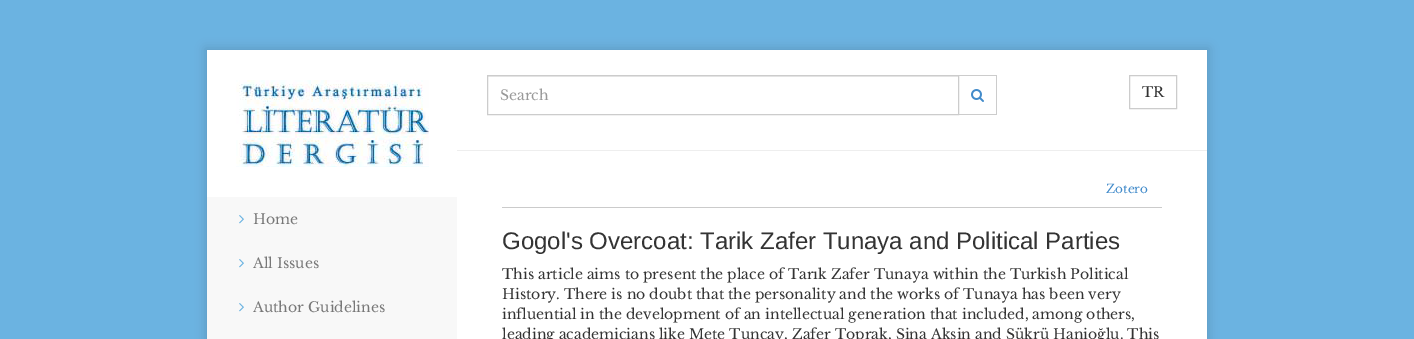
%!PS
<< /PageSize [1414 339] /PageUsesTransparency true >> setpagedevice
/alpha { dup .setfillconstantalpha .setstrokeconstantalpha } def
/roundrect { 5 dict begin { /r /h /w /y /x } { exch def } forall
  x r add y moveto x w add y 2 copy h add r arct x w add y h add x 1 index r arct
  x y h add x y r arct x y 2 copy exch w add exch r arct closepath end } def
/shadow { 12 dict begin { /a /b /q /h /w /y /x } { exch def } forall gsave /was 0 def
  9 -2 -9 { dup b mul 4 div /e exch def 1 sub .425 mul 2.718 exch exp 1 add a .99 .min exch div /now exch def
    1 1 now sub 1 was sub div sub alpha /was now def
    w h .min e 2 mul add 0 gt { x e sub y e sub w e 2 mul add h e 2 mul add
      q e add b .6 mul add w h .min 2 div e add .min 0 .max roundrect fill } if } for grestore end } def
/picture { 5 dict begin { /h /w /y /x /name } { exch def } forall
  gsave x y translate w h scale
  w h 8 [w 0 0 h 0 0] name (r) file false 3 colorimage grestore end } def
0 .pushpdf14devicefilter
0 339 translate 1 -1 scale
4 setmiterlimit
0.42 0.702 0.882 setrgbcolor
0 0 1414 339 rectfill
0 setgray
205 48 1004 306 0 5 0.14 shadow
1 setgray
207 50 1000 289 rectfill
(img1.rgb) 236 80 193 87 picture
0.973 setgray
207 197 250 142 rectfill
(img2.rgb) 239 215 5 9 picture
/LibreBaskerville-Regular [14 0 0 -14 0 0] selectfont
0.467 setgray
253 224 moveto (Home) show
(img2.rgb) 239 259 5 9 picture
253 268 moveto (All Issues) show
(img2.rgb) 239 303 5 9 picture
253 312 moveto (Author Guidelines) show
0.925 setgray
488 76 470 1 rectfill
0.8 setgray
487.5 75.5 471 39 rectstroke
0.6 setgray
500 100 moveto (Search) show
0.8 setgray
959 75 38 1 rectfill
996 75 1 40 rectfill
959 114 38 1 rectfill
(img3.rgb) 971 89 13 13 picture
1129.5 75.5 47 33 rectstroke
0.2 setgray
1142 97 moveto (TR) show
0.933 setgray
457 150 750 1 rectfill
0.796 setgray
502 207 660 1 rectfill
/LibreBaskerville-Regular [12 0 0 -12 0 0] selectfont
0.259 0.545 0.792 setrgbcolor
1106 193 moveto (Zotero) show
/LiberationSans-Regular [24 0 0 -24 0 0] selectfont
0.2 setgray
502 249 moveto (Gogol's Overcoat: Tarik Zafer Tunaya and Political Parties) show
/LibreBaskerville-Regular [14 0 0 -14 0 0] selectfont
502 279 moveto (This article aims to present the place of Tarık Zafer Tunaya within the Turkish Political) show
502 299 moveto (History. There is no doubt that the personality and the works of Tunaya has been very) show
502 319 moveto (influential in the development of an intellectual generation that included, among others,) show
502 339 moveto (leading academicians like Mete Tunçay, Zafer Toprak, Sina Akşin and Şükrü Hanioğlu. This) show
.poppdf14devicefilter showpage
